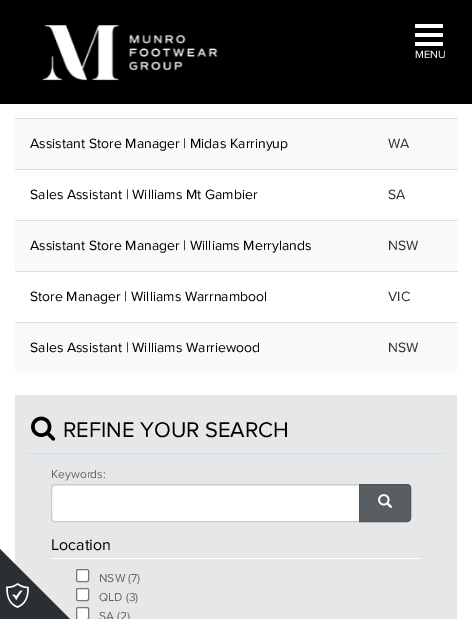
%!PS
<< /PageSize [472 619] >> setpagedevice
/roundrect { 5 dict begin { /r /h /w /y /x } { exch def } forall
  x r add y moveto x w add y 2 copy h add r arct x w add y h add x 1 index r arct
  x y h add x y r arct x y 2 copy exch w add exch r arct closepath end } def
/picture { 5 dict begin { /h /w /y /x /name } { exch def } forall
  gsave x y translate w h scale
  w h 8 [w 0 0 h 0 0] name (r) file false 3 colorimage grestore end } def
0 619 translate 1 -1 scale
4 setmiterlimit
1 setgray
0 0 472 619 rectfill
0 setgray
0 0 472 104 rectfill
(img1.rgb) 43 25 175 56 picture
1 setgray
415 24 28 4 1 roundrect fill
415 33 28 4 1 roundrect fill
415 42 28 4 1 roundrect fill
/ProximaNova-Regular [11 0 0 -11 0 0] selectfont
415 58 moveto (MENU) show
0.976 setgray
15 119 442 50 rectfill
/ProximaNova-Regular [14 0 0 -14 0 0] selectfont
0 setgray
30 148 moveto (Assistant Store Manager | Midas Karrinyup) show
0.867 setgray
15 118 443 1 rectfill
0.196 setgray
388 148 moveto (WA) show
0 setgray
30 199 moveto (Sales Assistant | Williams Mt Gambier) show
0.867 setgray
15 169 443 1 rectfill
0.196 setgray
388 199 moveto (SA) show
0.976 setgray
15 221 442 50 rectfill
0 setgray
30 250 moveto (Assistant Store Manager | Williams Merrylands) show
0.867 setgray
15 220 443 1 rectfill
0.196 setgray
388 250 moveto (NSW) show
0 setgray
30 301 moveto (Store Manager | Williams Warrnambool) show
0.867 setgray
15 271 443 1 rectfill
0.196 setgray
388 301 moveto (VIC) show
0.976 setgray
15 323 442 50 rectfill
0 setgray
30 352 moveto (Sales Assistant | Williams Warriewood) show
0.867 setgray
15 322 443 1 rectfill
0.196 setgray
388 352 moveto (NSW) show
0.902 0.906 0.91 setrgbcolor
15 393 442 226 rectfill
1 setgray
newpath 15 393 moveto 457 393 lineto 456 395 lineto 16 395 lineto closepath fill
(img2.rgb) 31 416 25 25 picture
/ProximaNova-Regular [22 0 0 -22 0 0] selectfont
0 setgray
63 437 moveto (REFINE YOUR SEARCH) show
0.827 0.875 0.898 setrgbcolor
26 453 420 1 rectfill
/ProximaNova-Regular [12 0 0 -12 0 0] selectfont
0.4 setgray
51 478 moveto (Keywords:) show
1 setgray
newpath 55 484 moveto 360 484 lineto 360 522 lineto 55 522 lineto 53 522 51 520 51 518 curveto 51 488 lineto 51 486 53 484 55 484 curveto closepath fill
0.925 setgray
newpath 55 486 moveto 359 486 lineto 359 485 lineto 55 485 lineto 53 485 52 487 52 489 curveto 52 487 53 486 55 486 curveto closepath fill
0.8 setgray
newpath 55 484.5 moveto 359.5 484.5 lineto 359.5 521.5 lineto 55 521.5 lineto 53 521.5 51.5 520 51.5 518 curveto 51.5 488 lineto 51.5 486 53 484.5 55 484.5 curveto closepath stroke
0.345 0.369 0.384 setrgbcolor
newpath 359.5 484.5 moveto 407 484.5 lineto 409 484.5 410.5 486 410.5 488 curveto 410.5 518 lineto 410.5 520 409 521.5 407 521.5 curveto 359.5 521.5 lineto closepath gsave fill grestore
0.333 setgray
stroke
(img3.rgb) 378 494 15 14 picture
1 setgray
51 558 370 1 rectfill
/ProximaNova-Regular [16 0 0 -16 0 0] selectfont
0 setgray
51 550 moveto (Location) show
1 setgray
76.5 569.5 12 12 1.5 roundrect gsave fill grestore
0.463 setgray
stroke
/ProximaNova-Regular [12 0 0 -12 0 0] selectfont
0.4 setgray
99 582 moveto (NSW \(7\)) show
1 setgray
76.5 588.5 12 12 1.5 roundrect gsave fill grestore
0.463 setgray
stroke
0.4 setgray
99 601 moveto (QLD \(3\)) show
1 setgray
76.5 607.5 12 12 1.5 roundrect gsave fill grestore
0.463 setgray
stroke
0.4 setgray
99 620 moveto (SA \(2\)) show
0.173 0.184 0.192 setrgbcolor
newpath 0 619 moveto 0 549 lineto 70 619 lineto closepath fill
(img4.rgb) 6 583 23 25 picture
showpage
